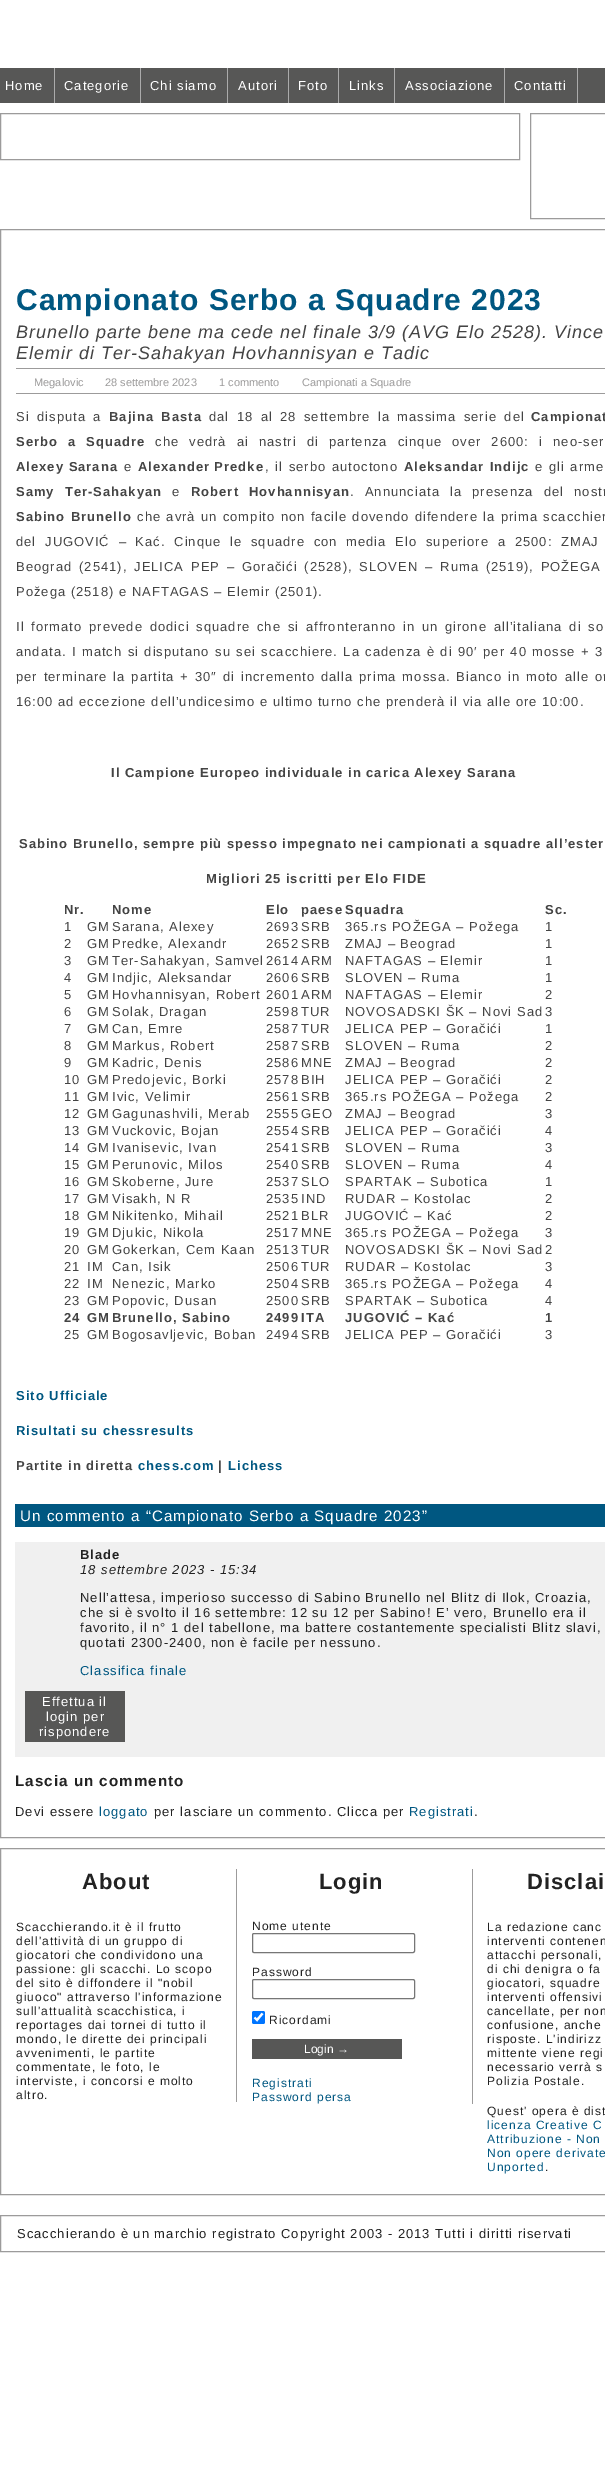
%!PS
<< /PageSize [605 2491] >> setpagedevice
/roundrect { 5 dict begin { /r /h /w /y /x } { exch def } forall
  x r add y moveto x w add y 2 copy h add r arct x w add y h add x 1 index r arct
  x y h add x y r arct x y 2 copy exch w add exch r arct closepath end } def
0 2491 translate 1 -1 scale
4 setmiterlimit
1 setgray
0 0 605 2491 rectfill
0.341 0.341 0.337 setrgbcolor
0 68 605 35 rectfill
0.671 setgray
54 68 1 35 rectfill
/LiberationSans-Regular [13 0 0 -13 0 0] selectfont
1 setgray
5 90 moveto 1 0 (Home) ashow
0.671 setgray
140 68 1 35 rectfill
1 setgray
64 90 moveto 1 0 (Categorie) ashow
0.671 setgray
227 68 1 35 rectfill
1 setgray
150 90 moveto 1 0 (Chi siamo) ashow
0.671 setgray
288 68 1 35 rectfill
1 setgray
238 90 moveto 1 0 (Autori) ashow
0.671 setgray
338 68 1 35 rectfill
1 setgray
298 90 moveto 1 0 (Foto) ashow
0.671 setgray
394 68 1 35 rectfill
1 setgray
349 90 moveto 1 0 (Links) ashow
0.671 setgray
504 68 1 35 rectfill
1 setgray
405 90 moveto 1 0 (Associazione) ashow
0.671 setgray
577 68 1 35 rectfill
1 setgray
514 90 moveto 1 0 (Contatti) ashow
0.612 0.608 0.608 setrgbcolor
0.5 113.5 519 46 rectstroke
530.5 113.5 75 105 rectstroke
0.5 229.5 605 1608 rectstroke
/LiberationSans-Bold [30 0 0 -30 0 0] selectfont
0 0.341 0.506 setrgbcolor
16 310 moveto 1 0 (Campionato Serbo a Squadre 2023) ashow
/LiberationSans-Italic [18 0 0 -18 0 0] selectfont
0.267 setgray
16 338 moveto 1 0 (Brunello parte bene ma cede nel finale 3/9 \(AVG Elo 2528\). Vince) ashow
16 359 moveto 1 0 (Elemir di Ter-Sahakyan Hovhannisyan e Tadic) ashow
0.612 0.608 0.608 setrgbcolor
16 368 589 1 rectfill
16 393 589 1 rectfill
/LiberationSans-Regular [11 0 0 -11 0 0] selectfont
34 386 moveto (Megalovic) show
105 386 moveto (28 settembre 2023) show
219 386 moveto (1 commento) show
302 386 moveto (Campionati a Squadre) show
/LiberationSans-Regular [13 0 0 -13 0 0] selectfont
0.267 setgray
16 421 moveto 2.75 0 32 1 0 (Si disputa a) awidthshow
/LiberationSans-Bold [13 0 0 -13 0 0] selectfont
109 421 moveto 2.75 0 32 1 0 (Bajina Basta) awidthshow
/LiberationSans-Regular [13 0 0 -13 0 0] selectfont
209 421 moveto 2.75 0 32 1 0 (dal 18 al 28 settembre la massima serie del) awidthshow
/LiberationSans-Bold [13 0 0 -13 0 0] selectfont
531 421 moveto 1 0 (Campionat) ashow
16 446 moveto 5.5 0 32 1 0 (Serbo a Squadre) awidthshow
/LiberationSans-Regular [13 0 0 -13 0 0] selectfont
155 446 moveto 5.5 0 32 1 0 (che vedrà ai nastri di partenza cinque over 2600: i neo-ser) awidthshow
/LiberationSans-Bold [13 0 0 -13 0 0] selectfont
16 471 moveto 1 0 (Alexey Sarana) ashow
/LiberationSans-Regular [13 0 0 -13 0 0] selectfont
124 471 moveto 1 0 (e) ashow
/LiberationSans-Bold [13 0 0 -13 0 0] selectfont
138 471 moveto 1 0 (Alexander Predke) ashow
/LiberationSans-Regular [13 0 0 -13 0 0] selectfont
265 471 moveto 1 0 32 1 0 (, il serbo autoctono) awidthshow
/LiberationSans-Bold [13 0 0 -13 0 0] selectfont
404 471 moveto 1 0 32 1 0 (Aleksandar Indijc) awidthshow
/LiberationSans-Regular [13 0 0 -13 0 0] selectfont
535 471 moveto 1 0 32 1 0 (e gli arme) awidthshow
/LiberationSans-Bold [13 0 0 -13 0 0] selectfont
16 496 moveto 5.5 0 32 1 0 (Samy Ter-Sahakyan) awidthshow
/LiberationSans-Regular [13 0 0 -13 0 0] selectfont
172 496 moveto 1 0 (e) ashow
/LiberationSans-Bold [13 0 0 -13 0 0] selectfont
191 496 moveto 1 0 (Robert) ashow
249 496 moveto 1 0 (Hovhannisyan) ashow
/LiberationSans-Regular [13 0 0 -13 0 0] selectfont
350 496 moveto 5.5 0 32 1 0 (. Annunciata la presenza del nostr) awidthshow
/LiberationSans-Bold [13 0 0 -13 0 0] selectfont
16 521 moveto 1 0 32 1 0 (Sabino Brunello) awidthshow
/LiberationSans-Regular [13 0 0 -13 0 0] selectfont
137 521 moveto 0.75 0 32 1 0 (che avrà un compito non facile dovendo difendere la prima scacchier) awidthshow
16 546 moveto 4.1 0 32 1 0 (del JUGOVIĆ – Kać. Cinque le squadre con media Elo superiore a 2500: ZMAJ) awidthshow
16 571 moveto 2.25 0 32 1 0 (Beograd \(2541\), JELICA PEP – Goračići \(2528\), SLOVEN – Ruma \(2519\), POŽEGA) awidthshow
16 596 moveto 1 0 (Požega \(2518\) e NAFTAGAS – Elemir \(2501\).) ashow
16 631 moveto 2.1 0 32 1 0 (Il formato prevede dodici squadre che si affronteranno in un girone all’italiana di so) awidthshow
16 656 moveto 0.8 0 32 1 0 (andata. I match si disputano su sei scacchiere. La cadenza è di 90′ per 40 mosse + 3) awidthshow
16 681 moveto 1.25 0 32 1 0 (per terminare la partita + 30″ di incremento dalla prima mossa. Bianco in moto alle or) awidthshow
16 706 moveto 1 0 (16:00 ad eccezione dell’undicesimo e ultimo turno che prenderà il via alle ore 10:00.) ashow
/LiberationSans-Bold [13 0 0 -13 0 0] selectfont
111 777 moveto 1 0 (Il Campione Europeo individuale in carica Alexey Sarana) ashow
19 848 moveto 1 0 (Sabino Brunello, sempre più spesso impegnato nei campionati a squadre all’ester) ashow
206 883 moveto 1 0 (Migliori 25 iscritti per Elo FIDE) ashow
64 914 moveto 1 0 (Nr.) ashow
112 914 moveto 1 0 (Nome) ashow
266 914 moveto 1 0 (Elo) ashow
301 914 moveto 1 0 (paese) ashow
345 914 moveto 1 0 (Squadra) ashow
545 914 moveto 1 0 (Sc.) ashow
/LiberationSans-Regular [13 0 0 -13 0 0] selectfont
64 931 moveto 1 0 (1) ashow
87 931 moveto 1 0 (GM) ashow
112 931 moveto 1 0 (Sarana, Alexey) ashow
266 931 moveto 1 0 (2693) ashow
301 931 moveto 1 0 (SRB) ashow
345 931 moveto 1 0 (365.rs POŽEGA – Požega) ashow
545 931 moveto 1 0 (1) ashow
64 948 moveto 1 0 (2) ashow
87 948 moveto 1 0 (GM) ashow
112 948 moveto 1 0 (Predke, Alexandr) ashow
266 948 moveto 1 0 (2652) ashow
301 948 moveto 1 0 (SRB) ashow
345 948 moveto 1 0 (ZMAJ – Beograd) ashow
545 948 moveto 1 0 (1) ashow
64 965 moveto 1 0 (3) ashow
87 965 moveto 1 0 (GM) ashow
112 965 moveto 1 0 (Ter-Sahakyan, Samvel) ashow
266 965 moveto 1 0 (2614) ashow
301 965 moveto 1 0 (ARM) ashow
345 965 moveto 1 0 (NAFTAGAS – Elemir) ashow
545 965 moveto 1 0 (1) ashow
64 982 moveto 1 0 (4) ashow
87 982 moveto 1 0 (GM) ashow
112 982 moveto 1 0 (Indjic, Aleksandar) ashow
266 982 moveto 1 0 (2606) ashow
301 982 moveto 1 0 (SRB) ashow
345 982 moveto 1 0 (SLOVEN – Ruma) ashow
545 982 moveto 1 0 (1) ashow
64 999 moveto 1 0 (5) ashow
87 999 moveto 1 0 (GM) ashow
112 999 moveto 1 0 (Hovhannisyan, Robert) ashow
266 999 moveto 1 0 (2601) ashow
301 999 moveto 1 0 (ARM) ashow
345 999 moveto 1 0 (NAFTAGAS – Elemir) ashow
545 999 moveto 1 0 (2) ashow
64 1016 moveto 1 0 (6) ashow
87 1016 moveto 1 0 (GM) ashow
112 1016 moveto 1 0 (Solak, Dragan) ashow
266 1016 moveto 1 0 (2598) ashow
301 1016 moveto 1 0 (TUR) ashow
345 1016 moveto 1 0 (NOVOSADSKI ŠK – Novi Sad) ashow
545 1016 moveto 1 0 (3) ashow
64 1033 moveto 1 0 (7) ashow
87 1033 moveto 1 0 (GM) ashow
112 1033 moveto 1 0 (Can, Emre) ashow
266 1033 moveto 1 0 (2587) ashow
301 1033 moveto 1 0 (TUR) ashow
345 1033 moveto 1 0 (JELICA PEP – Goračići) ashow
545 1033 moveto 1 0 (1) ashow
64 1050 moveto 1 0 (8) ashow
87 1050 moveto 1 0 (GM) ashow
112 1050 moveto 1 0 (Markus, Robert) ashow
266 1050 moveto 1 0 (2587) ashow
301 1050 moveto 1 0 (SRB) ashow
345 1050 moveto 1 0 (SLOVEN – Ruma) ashow
545 1050 moveto 1 0 (2) ashow
64 1067 moveto 1 0 (9) ashow
87 1067 moveto 1 0 (GM) ashow
112 1067 moveto 1 0 (Kadric, Denis) ashow
266 1067 moveto 1 0 (2586) ashow
301 1067 moveto 1 0 (MNE) ashow
345 1067 moveto 1 0 (ZMAJ – Beograd) ashow
545 1067 moveto 1 0 (2) ashow
64 1084 moveto 1 0 (10) ashow
87 1084 moveto 1 0 (GM) ashow
112 1084 moveto 1 0 (Predojevic, Borki) ashow
266 1084 moveto 1 0 (2578) ashow
301 1084 moveto 1 0 (BIH) ashow
345 1084 moveto 1 0 (JELICA PEP – Goračići) ashow
545 1084 moveto 1 0 (2) ashow
64 1101 moveto 1 0 (11) ashow
87 1101 moveto 1 0 (GM) ashow
112 1101 moveto 1 0 (Ivic, Velimir) ashow
266 1101 moveto 1 0 (2561) ashow
301 1101 moveto 1 0 (SRB) ashow
345 1101 moveto 1 0 (365.rs POŽEGA – Požega) ashow
545 1101 moveto 1 0 (2) ashow
64 1118 moveto 1 0 (12) ashow
87 1118 moveto 1 0 (GM) ashow
112 1118 moveto 1 0 (Gagunashvili, Merab) ashow
266 1118 moveto 1 0 (2555) ashow
301 1118 moveto 1 0 (GEO) ashow
345 1118 moveto 1 0 (ZMAJ – Beograd) ashow
545 1118 moveto 1 0 (3) ashow
64 1135 moveto 1 0 (13) ashow
87 1135 moveto 1 0 (GM) ashow
112 1135 moveto 1 0 (Vuckovic, Bojan) ashow
266 1135 moveto 1 0 (2554) ashow
301 1135 moveto 1 0 (SRB) ashow
345 1135 moveto 1 0 (JELICA PEP – Goračići) ashow
545 1135 moveto 1 0 (4) ashow
64 1152 moveto 1 0 (14) ashow
87 1152 moveto 1 0 (GM) ashow
112 1152 moveto 1 0 (Ivanisevic, Ivan) ashow
266 1152 moveto 1 0 (2541) ashow
301 1152 moveto 1 0 (SRB) ashow
345 1152 moveto 1 0 (SLOVEN – Ruma) ashow
545 1152 moveto 1 0 (3) ashow
64 1169 moveto 1 0 (15) ashow
87 1169 moveto 1 0 (GM) ashow
112 1169 moveto 1 0 (Perunovic, Milos) ashow
266 1169 moveto 1 0 (2540) ashow
301 1169 moveto 1 0 (SRB) ashow
345 1169 moveto 1 0 (SLOVEN – Ruma) ashow
545 1169 moveto 1 0 (4) ashow
64 1186 moveto 1 0 (16) ashow
87 1186 moveto 1 0 (GM) ashow
112 1186 moveto 1 0 (Skoberne, Jure) ashow
266 1186 moveto 1 0 (2537) ashow
301 1186 moveto 1 0 (SLO) ashow
345 1186 moveto 1 0 (SPARTAK – Subotica) ashow
545 1186 moveto 1 0 (1) ashow
64 1203 moveto 1 0 (17) ashow
87 1203 moveto 1 0 (GM) ashow
112 1203 moveto 1 0 (Visakh, N R) ashow
266 1203 moveto 1 0 (2535) ashow
301 1203 moveto 1 0 (IND) ashow
345 1203 moveto 1 0 (RUDAR – Kostolac) ashow
545 1203 moveto 1 0 (2) ashow
64 1220 moveto 1 0 (18) ashow
87 1220 moveto 1 0 (GM) ashow
112 1220 moveto 1 0 (Nikitenko, Mihail) ashow
266 1220 moveto 1 0 (2521) ashow
301 1220 moveto 1 0 (BLR) ashow
345 1220 moveto 1 0 (JUGOVIĆ – Kać) ashow
545 1220 moveto 1 0 (2) ashow
64 1237 moveto 1 0 (19) ashow
87 1237 moveto 1 0 (GM) ashow
112 1237 moveto 1 0 (Djukic, Nikola) ashow
266 1237 moveto 1 0 (2517) ashow
301 1237 moveto 1 0 (MNE) ashow
345 1237 moveto 1 0 (365.rs POŽEGA – Požega) ashow
545 1237 moveto 1 0 (3) ashow
64 1254 moveto 1 0 (20) ashow
87 1254 moveto 1 0 (GM) ashow
112 1254 moveto 1 0 (Gokerkan, Cem Kaan) ashow
266 1254 moveto 1 0 (2513) ashow
301 1254 moveto 1 0 (TUR) ashow
345 1254 moveto 1 0 (NOVOSADSKI ŠK – Novi Sad) ashow
545 1254 moveto 1 0 (2) ashow
64 1271 moveto 1 0 (21) ashow
87 1271 moveto 1 0 (IM) ashow
112 1271 moveto 1 0 (Can, Isik) ashow
266 1271 moveto 1 0 (2506) ashow
301 1271 moveto 1 0 (TUR) ashow
345 1271 moveto 1 0 (RUDAR – Kostolac) ashow
545 1271 moveto 1 0 (3) ashow
64 1288 moveto 1 0 (22) ashow
87 1288 moveto 1 0 (IM) ashow
112 1288 moveto 1 0 (Nenezic, Marko) ashow
266 1288 moveto 1 0 (2504) ashow
301 1288 moveto 1 0 (SRB) ashow
345 1288 moveto 1 0 (365.rs POŽEGA – Požega) ashow
545 1288 moveto 1 0 (4) ashow
64 1305 moveto 1 0 (23) ashow
87 1305 moveto 1 0 (GM) ashow
112 1305 moveto 1 0 (Popovic, Dusan) ashow
266 1305 moveto 1 0 (2500) ashow
301 1305 moveto 1 0 (SRB) ashow
345 1305 moveto 1 0 (SPARTAK – Subotica) ashow
545 1305 moveto 1 0 (4) ashow
/LiberationSans-Bold [13 0 0 -13 0 0] selectfont
64 1322 moveto 1 0 (24) ashow
87 1322 moveto 1 0 (GM) ashow
112 1322 moveto 1 0 (Brunello, Sabino) ashow
266 1322 moveto 1 0 (2499) ashow
301 1322 moveto 1 0 (ITA) ashow
345 1322 moveto 1 0 (JUGOVIĆ – Kać) ashow
545 1322 moveto 1 0 (1) ashow
/LiberationSans-Regular [13 0 0 -13 0 0] selectfont
64 1339 moveto 1 0 (25) ashow
87 1339 moveto 1 0 (GM) ashow
112 1339 moveto 1 0 (Bogosavljevic, Boban) ashow
266 1339 moveto 1 0 (2494) ashow
301 1339 moveto 1 0 (SRB) ashow
345 1339 moveto 1 0 (JELICA PEP – Goračići) ashow
545 1339 moveto 1 0 (3) ashow
/LiberationSans-Bold [13 0 0 -13 0 0] selectfont
0 0.341 0.506 setrgbcolor
16 1400 moveto 1 0 (Sito Ufficiale) ashow
16 1435 moveto 1 0 (Risultati su chessresults) ashow
0.267 setgray
16 1470 moveto 1 0 (Partite in diretta) ashow
0 0.341 0.506 setrgbcolor
138 1470 moveto 1 0 (chess.com) ashow
0.267 setgray
218 1470 moveto 1 0 (|) ashow
0 0.341 0.506 setrgbcolor
228 1470 moveto 1 0 (Lichess) ashow
15 1504 590 23 rectfill
/LiberationSans-Regular [15.2 0 0 -15.2 0 0] selectfont
1 setgray
20 1521 moveto 1 0 (Un commento a “Campionato Serbo a Squadre 2023”) ashow
0.941 setgray
15 1542 590 215 rectfill
/LiberationSans-Bold [13 0 0 -13 0 0] selectfont
0.133 setgray
80 1559 moveto 1 0 (Blade) ashow
/LiberationSans-Italic [13 0 0 -13 0 0] selectfont
80 1574 moveto 1 0 (18 settembre 2023 - 15:34) ashow
/LiberationSans-Regular [13 0 0 -13 0 0] selectfont
80 1602 moveto 1 0 (Nell’attesa, imperioso successo di Sabino Brunello nel Blitz di Ilok, Croazia,) ashow
80 1617 moveto 1 0 (che si è svolto il 16 settembre: 12 su 12 per Sabino! E’ vero, Brunello era il) ashow
80 1632 moveto 1 0 (favorito, il n° 1 del tabellone, ma battere costantemente specialisti Blitz slavi,) ashow
80 1647 moveto 1 0 (quotati 2300-2400, non è facile per nessuno.) ashow
0 0.341 0.506 setrgbcolor
80 1675 moveto 1 0 (Classifica finale) ashow
0.341 0.341 0.337 setrgbcolor
25 1691 100 51 rectfill
1 setgray
42 1706 moveto 1 0 (Effettua il) ashow
46 1721 moveto 1 0 (login per) ashow
39 1736 moveto 1 0 (rispondere) ashow
/LiberationSans-Bold [15.2 0 0 -15.2 0 0] selectfont
0.133 setgray
15 1786 moveto 1 0 (Lascia un commento) ashow
/LiberationSans-Regular [13 0 0 -13 0 0] selectfont
15 1816 moveto 1 0 (Devi essere) ashow
0 0.341 0.506 setrgbcolor
99 1816 moveto 1 0 (loggato) ashow
0.133 setgray
154 1816 moveto 1 0 (per lasciare un commento. Clicca per) ashow
0 0.341 0.506 setrgbcolor
409 1816 moveto 1 0 (Registrati) ashow
0.133 setgray
474 1816 moveto 1 0 (.) ashow
0.612 0.608 0.608 setrgbcolor
0.5 1848.5 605 346 rectstroke
236 1869 1 233 rectfill
/LiberationSans-Bold [22 0 0 -22 0 0] selectfont
0.133 setgray
82 1889 moveto 1 0 (About) ashow
/LiberationSans-Regular [12 0 0 -12 0 0] selectfont
16 1931 moveto 1 0 (Scacchierando.it è il frutto) ashow
16 1945 moveto 1 0 (dell'attività di un gruppo di) ashow
16 1959 moveto 1 0 (giocatori che condividono una) ashow
16 1973 moveto 1 0 (passione: gli scacchi. Lo scopo) ashow
16 1987 moveto 1 0 (del sito è diffondere il "nobil) ashow
16 2001 moveto 1 0 (giuoco" attraverso l'informazione) ashow
16 2015 moveto 1 0 (sull'attualità scacchistica, i) ashow
16 2029 moveto 1 0 (reportages dai tornei di tutto il) ashow
16 2043 moveto 1 0 (mondo, le dirette dei principali) ashow
16 2057 moveto 1 0 (avvenimenti, le partite) ashow
16 2071 moveto 1 0 (commentate, le foto, le) ashow
16 2085 moveto 1 0 (interviste, i concorsi e molto) ashow
16 2099 moveto 1 0 (altro.) ashow
0.612 0.608 0.608 setrgbcolor
472 1869 1 235 rectfill
/LiberationSans-Bold [22 0 0 -22 0 0] selectfont
0.133 setgray
319 1889 moveto 1 0 (Login) ashow
/LiberationSans-Regular [12 0 0 -12 0 0] selectfont
252 1930 moveto 1 0 (Nome utente) ashow
0.463 setgray
252.5 1933.5 162 19 1.5 roundrect stroke
0.133 setgray
252 1976 moveto 1 0 (Password) ashow
0.463 setgray
252.5 1979.5 162 19 1.5 roundrect stroke
0 0.459 1 setrgbcolor
252 2011 13 13 2 roundrect fill
1 setgray
2.1 setlinewidth
newpath 254.5 2017.5 moveto 257 2020 lineto 262.5 2013.5 lineto stroke
0.133 setgray
269 2024 moveto 1 0 (Ricordami) ashow
0.341 0.341 0.337 setrgbcolor
252 2039 150 20 rectfill
1 setgray
304 2053 moveto (Login →) show
0 0.341 0.506 setrgbcolor
252 2087 moveto 1 0 (Registrati) ashow
252 2101 moveto 1 0 (Password persa) ashow
/LiberationSans-Bold [22 0 0 -22 0 0] selectfont
0.133 setgray
527 1889 moveto 1 0 (Disclai) ashow
/LiberationSans-Regular [12 0 0 -12 0 0] selectfont
487 1931 moveto 1 0 (La redazione canc) ashow
487 1945 moveto 1 0 (interventi contenen) ashow
487 1959 moveto 1 0 (attacchi personali,) ashow
487 1973 moveto 1 0 (di chi denigra o fa) ashow
487 1987 moveto 1 0 (giocatori, squadre) ashow
487 2001 moveto 1 0 (interventi offensivi) ashow
487 2015 moveto 1 0 (cancellate, per non) ashow
487 2029 moveto 1 0 (confusione, anche) ashow
487 2043 moveto 1 0 (risposte. L'indirizz) ashow
487 2057 moveto 1 0 (mittente viene regi) ashow
487 2071 moveto 1 0 (necessario verrà s) ashow
487 2085 moveto 1 0 (Polizia Postale.) ashow
487 2115 moveto 1 0 (Quest' opera è dist) ashow
0 0.341 0.506 setrgbcolor
487 2129 moveto 1 0 (licenza Creative C) ashow
487 2143 moveto 1 0 (Attribuzione - Non) ashow
487 2157 moveto 1 0 (Non opere derivate) ashow
487 2171 moveto 1 0 (Unported) ashow
0.133 setgray
545 2171 moveto 1 0 (.) ashow
0.612 0.608 0.608 setrgbcolor
1 setlinewidth
0.5 2215.5 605 36 rectstroke
/LiberationSans-Regular [13 0 0 -13 0 0] selectfont
0.133 setgray
17 2238 moveto 1 0 (Scacchierando è un marchio registrato Copyright 2003 - 2013 Tutti i diritti riservati) ashow
showpage
